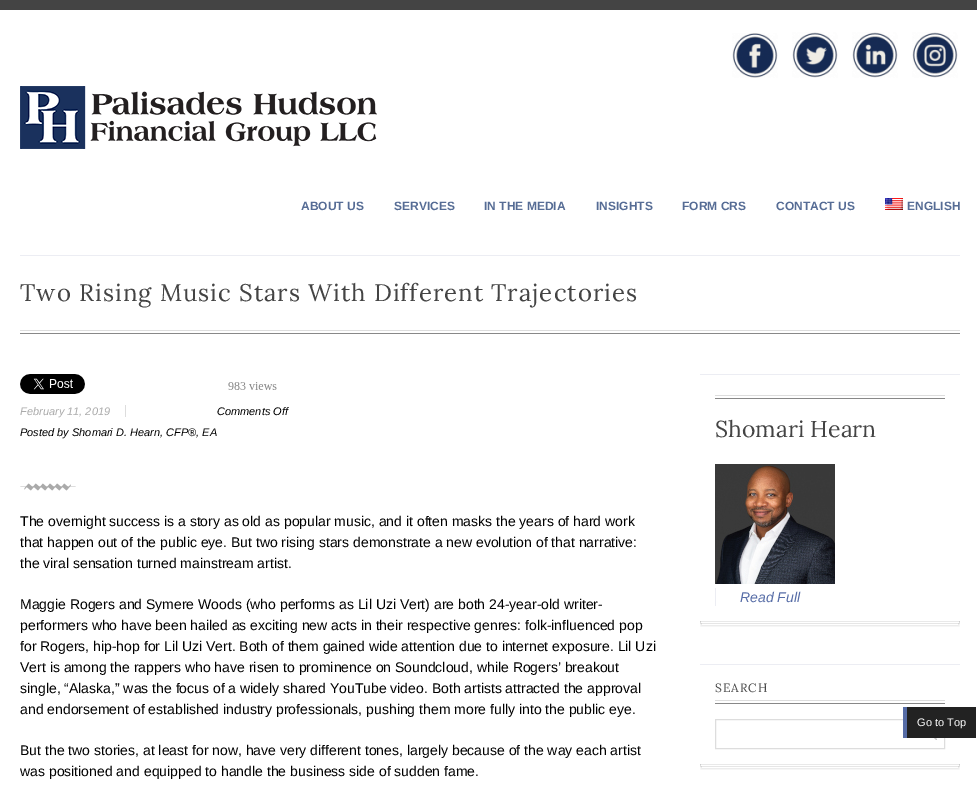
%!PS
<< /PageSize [977 796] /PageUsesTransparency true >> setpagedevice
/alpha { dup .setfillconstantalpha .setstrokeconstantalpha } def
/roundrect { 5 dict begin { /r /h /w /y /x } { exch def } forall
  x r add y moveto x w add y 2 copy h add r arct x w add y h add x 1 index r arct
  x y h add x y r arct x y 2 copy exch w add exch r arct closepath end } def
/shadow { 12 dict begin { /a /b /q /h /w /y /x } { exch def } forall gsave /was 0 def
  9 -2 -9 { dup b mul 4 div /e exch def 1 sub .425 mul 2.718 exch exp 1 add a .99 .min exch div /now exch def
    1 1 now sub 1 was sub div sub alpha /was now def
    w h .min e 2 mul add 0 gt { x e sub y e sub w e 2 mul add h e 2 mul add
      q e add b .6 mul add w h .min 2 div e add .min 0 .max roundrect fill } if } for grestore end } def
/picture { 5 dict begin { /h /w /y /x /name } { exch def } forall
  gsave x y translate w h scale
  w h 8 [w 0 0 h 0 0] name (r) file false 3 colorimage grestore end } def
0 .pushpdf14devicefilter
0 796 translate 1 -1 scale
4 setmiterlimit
0.267 setgray
0 0 977 796 rectfill
1 setgray
0 10 977 786 rectfill
(img1.rgb) 732 33 46 45 picture
(img2.rgb) 792 32 46 46 picture
(img3.rgb) 852 32 46 46 picture
(img4.rgb) 912 32 46 46 picture
(img5.rgb) 20 86 357 63 picture
/LiberationSans-Bold [12 0 0 -12 0 0] selectfont
0.337 0.424 0.584 setrgbcolor
301 210 moveto (ABOUT US) show
394 210 moveto (SERVICES) show
484 210 moveto (IN THE MEDIA) show
596 210 moveto (INSIGHTS) show
682 210 moveto (FORM CRS) show
776 210 moveto (CONTACT US) show
(img6.rgb) 885 198 18 12 picture
907 210 moveto (ENGLISH) show
0.925 0.929 0.953 setrgbcolor
20 255 940 1 rectfill
/Lora-Regular [24 0 0 -24 0 0] selectfont
0.267 setgray
20 301 moveto 1 0 (Two Rising Music Stars With Different Trajectories) ashow
0.867 setgray
20 330 940 1 rectfill
0.533 setgray
20 333 940 1 rectfill
(img7.rgb) 20 374 65 20 picture
(img8.rgb) 228 382 49 8 picture
/LiberationSans-Italic [11 0 0 -11 0 0] selectfont
0.667 setgray
20 415 moveto (February 11, 2019) show
0.867 setgray
125 405 1 12 rectfill
0 setgray
20 436 moveto (Posted by Shomari D. Hearn, CFP®, EA) show
217 415 moveto (Comments Off) show
(img9.rgb) 20 483 56 8 picture
/LiberationSans-Regular [14 0 0 -14 0 0] selectfont
20 526 moveto (The overnight success is a story as old as popular music, and it often masks the years of hard work) show
20 547 moveto (that happen out of the public eye. But two rising stars demonstrate a new evolution of that narrative:) show
20 568 moveto (the viral sensation turned mainstream artist.) show
20 609 moveto (Maggie Rogers and Symere Woods \(who performs as Lil Uzi Vert\) are both 24-year-old writer-) show
20 630 moveto (performers who have been hailed as exciting new acts in their respective genres: folk-influenced pop) show
20 651 moveto (for Rogers, hip-hop for Lil Uzi Vert. Both of them gained wide attention due to internet exposure. Lil Uzi) show
20 672 moveto (Vert is among the rappers who have risen to prominence on Soundcloud, while Rogers’ breakout) show
20 693 moveto (single, “Alaska,” was the focus of a widely shared YouTube video. Both artists attracted the approval) show
20 714 moveto (and endorsement of established industry professionals, pushing them more fully into the public eye.) show
20 755 moveto (But the two stories, at least for now, have very different tones, largely because of the way each artist) show
20 776 moveto (was positioned and equipped to handle the business side of sudden fame.) show
gsave
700 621 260 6 rectclip
701 381 258 245 0 1 0.11 shadow
grestore
1 setgray
702 623 256 2 rectfill
gsave
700 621 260 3 rectclip
0 setgray
700 377 260 247 0 0.5 0.11 shadow
grestore
701 621 258 2 rectfill
gsave
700 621 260 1 rectclip
0 setgray
700 375 260 247 0 0.5 0.1 shadow
grestore
0.925 0.929 0.953 setrgbcolor
700 374 260 1 rectfill
0.867 setgray
715 395 230 1 rectfill
0.533 setgray
715 398 230 1 rectfill
/Lora-Regular [23 0 0 -23 0 0] selectfont
0.267 setgray
715 437 moveto (Shomari Hearn) show
(img10.rgb) 715 464 120 120 picture
0.925 0.929 0.953 setrgbcolor
715 588 1 18 rectfill
/LiberationSans-Italic [14 0 0 -14 0 0] selectfont
0.337 0.424 0.651 setrgbcolor
740 602 moveto (Read Full) show
gsave
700 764 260 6 rectclip
0 setgray
701 671 258 98 0 1 0.11 shadow
grestore
1 setgray
702 766 256 2 rectfill
gsave
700 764 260 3 rectclip
0 setgray
700 667 260 100 0 0.5 0.11 shadow
grestore
701 764 258 2 rectfill
gsave
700 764 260 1 rectclip
0 setgray
700 665 260 100 0 0.5 0.1 shadow
grestore
0.925 0.929 0.953 setrgbcolor
700 664 260 1 rectfill
/Lora-Regular [12 0 0 -12 0 0] selectfont
0.267 setgray
715 692 moveto 1 0 (SEARCH) ashow
0.867 setgray
715 700 230 1 rectfill
0.533 setgray
715 703 230 1 rectfill
(img11.rgb) 934 738 3 2 picture
0.867 setgray
715.5 719.5 229 29 rectstroke
0.133 setgray
907 707 69 31 rectfill
0.337 0.424 0.651 setrgbcolor
903 707 4 31 rectfill
/LiberationSans-Regular [11 0 0 -11 0 0] selectfont
1 setgray
917 726 moveto (Go to Top) show
.poppdf14devicefilter showpage
